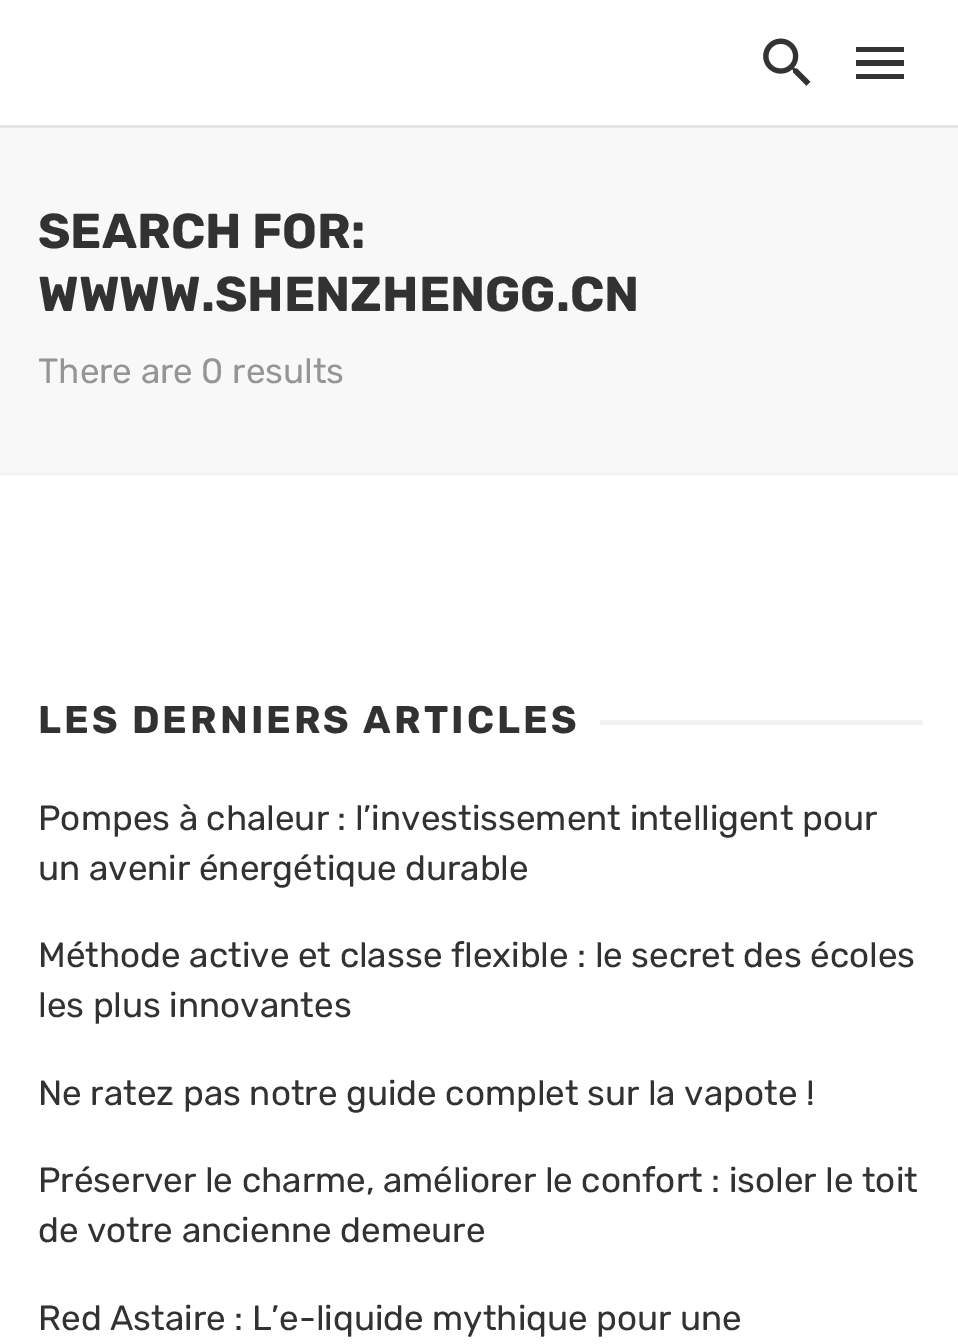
%!PS
<< /PageSize [958 1344] /PageUsesTransparency true >> setpagedevice
/alpha { dup .setfillconstantalpha .setstrokeconstantalpha } def
/picture { 5 dict begin { /h /w /y /x /name } { exch def } forall
  gsave x y translate w h scale
  w h 8 [w 0 0 h 0 0] name (r) file false 3 colorimage grestore end } def
0 .pushpdf14devicefilter
0 1344 translate 1 -1 scale
4 setmiterlimit
1 setgray
0 0 958 1344 rectfill
0.949 setgray
3 setlinewidth
-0.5 124.5 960 349 rectstroke
0.933 setgray
0 125 958 3 rectfill
1 setgray
0 123 958 2 rectfill
0.04 alpha
0 setgray
0 125 958 3 rectfill
1 alpha
(img1.rgb) 763 38 48 48 picture
0.2 setgray
newpath 856 47 moveto 904 47 lineto 904 52 lineto 856 52 lineto closepath 856 66 moveto 856 60 lineto 904 60 lineto 904 66 lineto closepath 856 79 moveto 856 74 lineto 904 74 lineto 904 79 lineto closepath fill
0.973 setgray
0 128 958 345 rectfill
/Rubik-Bold [49 0 0 -49 0 0] selectfont
0.196 setgray
38 248 moveto (SEARCH FOR:) show
38 311 moveto (WWWW.SHENZHENGG.CN) show
/Rubik-Regular [35 0 0 -35 0 0] selectfont
0.584 setgray
38 383 moveto (There are 0 results) show
/Rubik-Bold [38.5 0 0 -38.5 0 0] selectfont
0.196 setgray
38 733 moveto 3.1 0 (LES DERNIERS ARTICLES) ashow
0.949 setgray
600 720 323 5 rectfill
/Rubik-Regular [35 0 0 -35 0 0] selectfont
0.196 setgray
38 830 moveto (Pompes à chaleur : l’investissement intelligent pour) show
38 880 moveto (un avenir énergétique durable) show
38 967 moveto (Méthode active et classe flexible : le secret des écoles) show
38 1017 moveto (les plus innovantes) show
38 1105 moveto (Ne ratez pas notre guide complet sur la vapote !) show
38 1192 moveto (Préserver le charme, améliorer le confort : isoler le toit) show
38 1242 moveto (de votre ancienne demeure) show
38 1330 moveto (Red Astaire : L’e-liquide mythique pour une) show
.poppdf14devicefilter showpage
